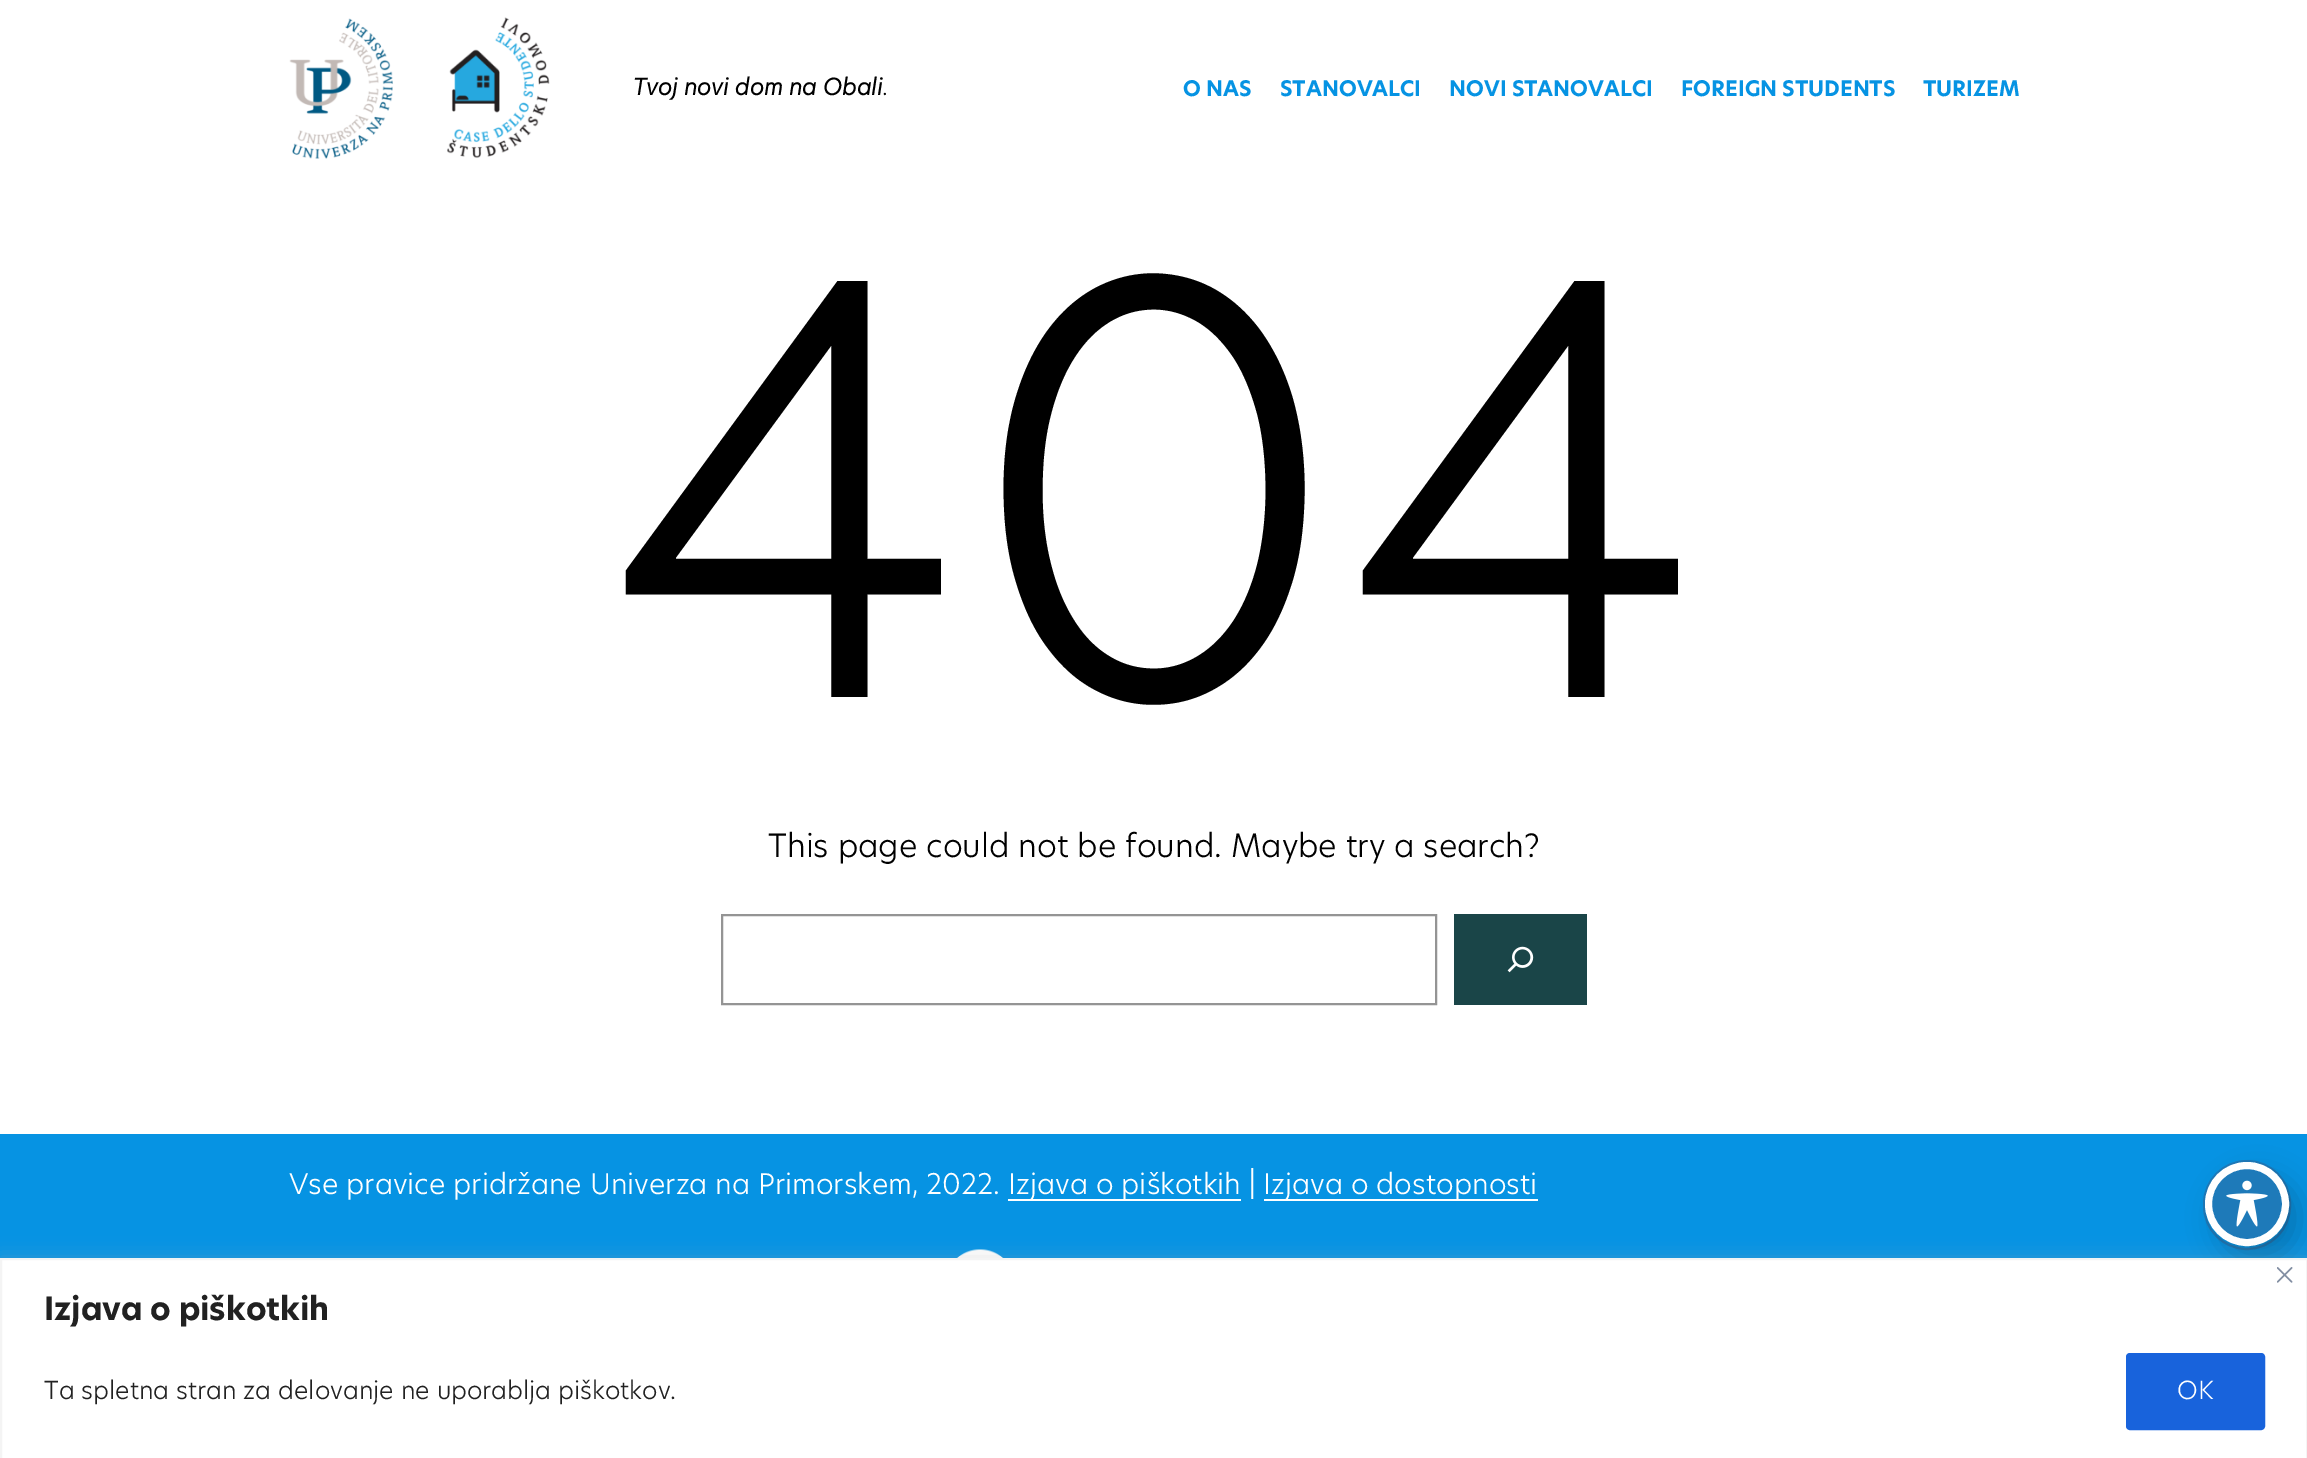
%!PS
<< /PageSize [2307 1458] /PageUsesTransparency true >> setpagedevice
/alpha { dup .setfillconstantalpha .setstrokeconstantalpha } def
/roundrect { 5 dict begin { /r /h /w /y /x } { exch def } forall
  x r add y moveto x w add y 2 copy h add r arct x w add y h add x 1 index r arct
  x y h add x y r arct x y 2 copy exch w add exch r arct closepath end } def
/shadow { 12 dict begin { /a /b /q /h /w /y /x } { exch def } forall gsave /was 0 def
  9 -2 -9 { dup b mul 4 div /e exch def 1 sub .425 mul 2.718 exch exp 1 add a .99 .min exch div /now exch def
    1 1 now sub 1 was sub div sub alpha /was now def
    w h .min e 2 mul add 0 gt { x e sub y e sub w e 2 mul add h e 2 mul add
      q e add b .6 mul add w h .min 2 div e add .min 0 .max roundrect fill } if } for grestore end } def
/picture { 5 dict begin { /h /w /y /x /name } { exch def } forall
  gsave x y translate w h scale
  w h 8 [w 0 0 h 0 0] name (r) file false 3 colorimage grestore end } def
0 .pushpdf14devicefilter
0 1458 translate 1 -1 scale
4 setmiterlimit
1 setgray
0 0 2307 1458 rectfill
(img1.rgb) 289 17 261 142 picture
/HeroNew-BoldItalic [22.4 0 0 -22.4 0 0] selectfont
0 setgray
633 95 moveto (Tvoj novi dom na Obali) show
/HeroNew-LightItalic [22.4 0 0 -22.4 0 0] selectfont
883 95 moveto (.) show
/HeroNew-Bold [21 0 0 -21 0 0] selectfont
0.024 0.576 0.89 setrgbcolor
1183 96 moveto (O NAS) show
1280 96 moveto (STANOVALCI) show
1449 96 moveto (NOVI STANOVALCI) show
1681 96 moveto (FOREIGN STUDENTS) show
1923 96 moveto (TURIZEM) show
/HeroNew-Light [560 0 0 -560 0 0] selectfont
0 setgray
605 697 moveto (404) show
/HeroNew-Light [31.5 0 0 -31.5 0 0] selectfont
768 857 moveto (This page could not be found. Maybe try a search?) show
0.58 setgray
2 setlinewidth
722 915 714 89 rectstroke
0.102 0.271 0.282 setrgbcolor
1454 914 133 91 rectfill
(img2.rgb) 1507 946 27 27 picture
0.024 0.576 0.89 setrgbcolor
0 1134 2307 124 rectfill
/HeroNew-Light [28 0 0 -28 0 0] selectfont
1 setgray
289 1194 moveto (Vse pravice pridržane Univerza na Primorskem, 2022.) show
1008 1199 233 2 rectfill
1008 1194 moveto (Izjava o piškotkih |) show
1264 1199 274 2 rectfill
1263 1194 moveto (Izjava o dostopnosti) show
(img3.rgb) 956 1249 48 9 picture
0.118 0.478 0.725 setrgbcolor
2204 1161 86 88 43 roundrect stroke
0 setgray
2216 1176 84 84 42 14 0.2 shadow
0.118 0.478 0.725 setrgbcolor
newpath 2247 1204 38.5 0 360 arc closepath gsave fill grestore
1 setgray
7 setlinewidth
stroke
(img4.rgb) 2226 1180 42 47 picture
0.675 0.671 0.671 setrgbcolor
0 1257 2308 201 0 9 0.3 shadow
1 setgray
newpath 1 1259 moveto 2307 1259 lineto 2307 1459 lineto 1 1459 lineto closepath gsave fill grestore
0.957 setgray
2 setlinewidth
stroke
(img5.rgb) 2277 1267 16 16 picture
/HeroNew-Bold [31.5 0 0 -31.5 0 0] selectfont
0.129 setgray
44 1320 moveto (Izjava o piškotkih) show
/HeroNew-Light [24.5 0 0 -24.5 0 0] selectfont
44 1399 moveto (Ta spletna stran za delovanje ne uporablja piškotkov.) show
0.094 0.388 0.863 setrgbcolor
2128 1355 135 73 2 roundrect gsave fill grestore
4 setlinewidth
stroke
1 setgray
2177 1399 moveto (OK) show
.poppdf14devicefilter showpage
